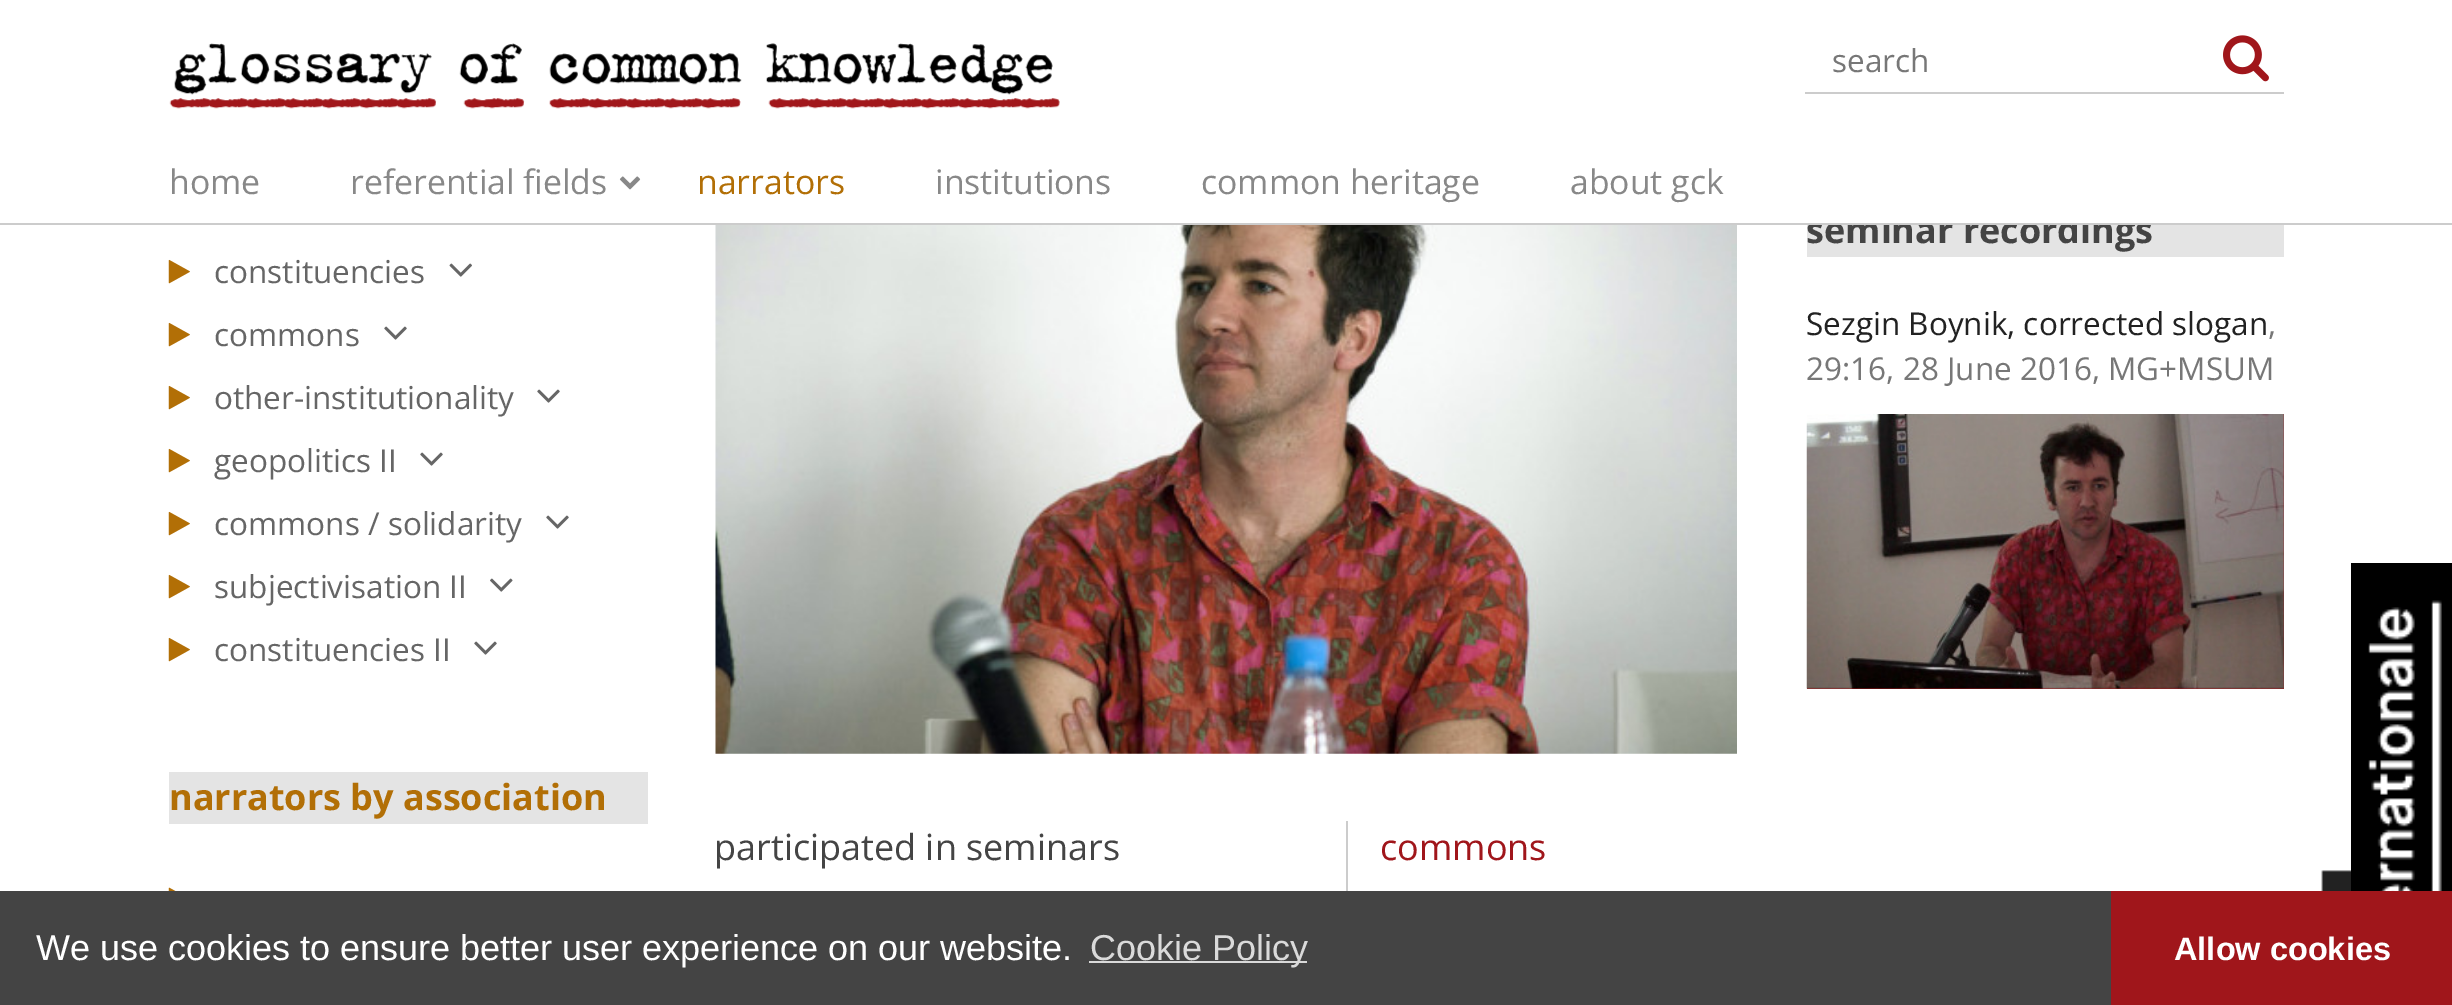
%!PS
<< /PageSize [2452 1005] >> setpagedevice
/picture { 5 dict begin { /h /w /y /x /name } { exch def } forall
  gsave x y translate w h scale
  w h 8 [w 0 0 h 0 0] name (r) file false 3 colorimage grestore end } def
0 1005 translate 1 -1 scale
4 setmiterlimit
1 setgray
0 0 2452 1005 rectfill
0.894 setgray
1807 225 477 32 rectfill
/OpenSans-Bold [36 0 0 -36 0 0] selectfont
0.267 setgray
1806 243 moveto (seminar recordings) show
1 setgray
1882 215 207 8 rectfill
0.8 setgray
0 223 2452 2 rectfill
(img1.rgb) 169 43 891 66 picture
1805 92 479 2 rectfill
/OpenSans-Regular [31.5 0 0 -31.5 0 0] selectfont
0.467 setgray
1832 72 moveto (search) show
(img2.rgb) 2223 35 46 47 picture
/OpenSans-Regular [33.75 0 0 -33.75 0 0] selectfont
0.533 setgray
169 194 moveto (home) show
350 194 moveto (referential fields) show
(img3.rgb) 619 176 22 14 picture
0.698 0.435 0.024 setrgbcolor
697 194 moveto (narrators) show
0.533 setgray
935 194 moveto (institutions) show
1201 194 moveto (common heritage) show
1570 194 moveto (about gck) show
(img4.rgb) 168 259 22 25 picture
/OpenSans-Regular [31.5 0 0 -31.5 0 0] selectfont
0.4 setgray
214 283 moveto (constituencies) show
(img5.rgb) 449 263 23 14 picture
(img4.rgb) 168 322 22 25 picture
214 346 moveto (commons) show
(img6.rgb) 384 326 23 14 picture
(img4.rgb) 168 385 22 25 picture
214 409 moveto (other-institutionality) show
(img6.rgb) 537 389 23 14 picture
(img4.rgb) 168 448 22 25 picture
214 472 moveto (geopolitics II) show
(img6.rgb) 420 452 23 14 picture
(img4.rgb) 168 511 22 25 picture
214 535 moveto (commons / solidarity) show
(img6.rgb) 546 515 23 14 picture
(img4.rgb) 168 574 22 25 picture
214 598 moveto (subjectivisation II) show
(img7.rgb) 490 578 23 14 picture
(img4.rgb) 168 637 22 25 picture
214 661 moveto (constituencies II) show
(img6.rgb) 474 641 23 14 picture
0.894 setgray
169 772 479 52 rectfill
/OpenSans-Bold [36 0 0 -36 0 0] selectfont
0.698 0.435 0.024 setrgbcolor
169 810 moveto (narrators by association) show
(img8.rgb) 168 887 8 4 picture
/OpenSans-Regular [31.5 0 0 -31.5 0 0] selectfont
0.133 setgray
1806 335 moveto (Sezgin Boynik, corrected slogan) show
0.467 setgray
2268 335 moveto (,) show
1806 380 moveto (29:16, 28 June 2016, MG+MSUM) show
0.627 0.086 0.106 setrgbcolor
1807 414 477 275 rectfill
(img9.rgb) 1806 414 478 275 picture
(img10.rgb) 715 225 1022 529 picture
0.8 setgray
1346 821 2 70 rectfill
/OpenSans-Regular [36 0 0 -36 0 0] selectfont
0.267 setgray
714 860 moveto (participated in seminars) show
0.627 0.086 0.106 setrgbcolor
1380 860 moveto (commons) show
(img11.rgb) 2321 870 30 21 picture
0 setgray
2351 563 101 328 rectfill
(img12.rgb) 2368 600 74 291 picture
0.267 setgray
0 891 2111 114 rectfill
/LiberationSans-Regular [36 0 0 -36 0 0] selectfont
1 setgray
36 960 moveto (We use cookies to ensure better user experience on our website.) show
0.855 setgray
1089 961 218 2 rectfill
1090 960 moveto (Cookie Policy) show
0.627 0.086 0.106 setrgbcolor
2111 891 341 114 rectfill
/LiberationSans-Bold [32.5 0 0 -32.5 0 0] selectfont
1 setgray
2174 960 moveto (Allow cookies) show
showpage
